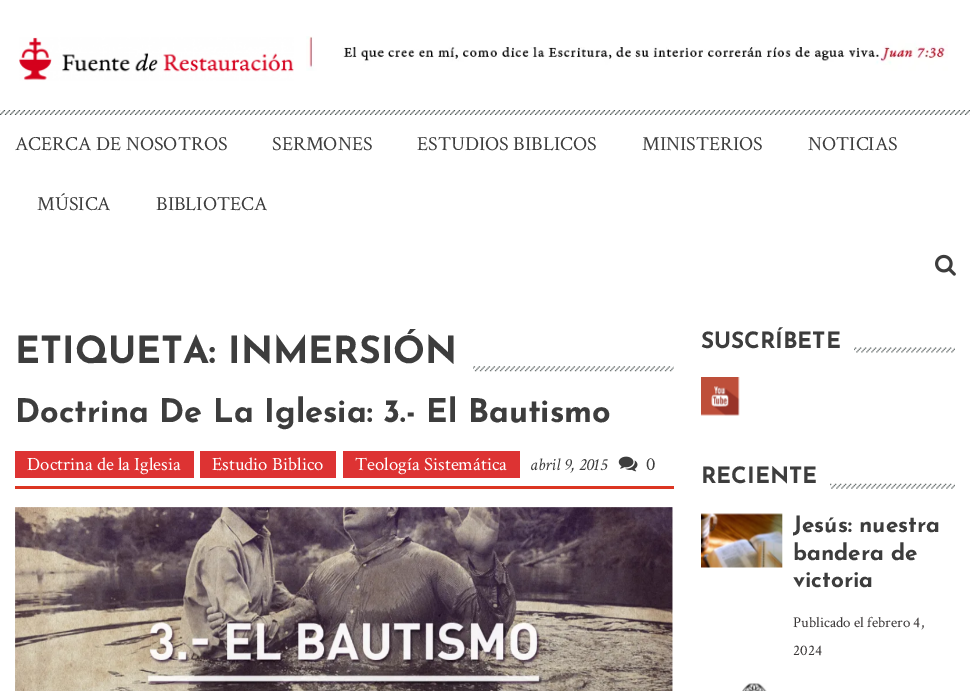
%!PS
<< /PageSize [970 691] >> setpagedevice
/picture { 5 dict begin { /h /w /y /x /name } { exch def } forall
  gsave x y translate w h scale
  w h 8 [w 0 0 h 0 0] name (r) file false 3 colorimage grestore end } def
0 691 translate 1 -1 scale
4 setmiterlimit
1 setgray
0 0 970 691 rectfill
(img1.rgb) 0 110 970 5 picture
(img2.rgb) 19 37 275 44 picture
(img3.rgb) 306 36 642 35 picture
/CrimsonText-Regular [20 0 0 -20 0 0] selectfont
0.239 setgray
15 150 moveto (ACERCA DE NOSOTROS) show
272 150 moveto (SERMONES) show
417 150 moveto (ESTUDIOS BIBLICOS) show
642 150 moveto (MINISTERIOS) show
808 150 moveto (NOTICIAS) show
37 210 moveto (MÚSICA) show
156 210 moveto (BIBLIOTECA) show
(img4.rgb) 935 254 21 22 picture
(img5.rgb) 473 366 201 6 picture
/JosefinSans-Thin [37.5 0 0 -37.5 0 0] selectfont
15 363 moveto (ETIQUETA: INMERSIÓN) show
0.863 0.208 0.133 setrgbcolor
15 486 659 3 rectfill
/JosefinSans-Thin [32.5 0 0 -32.5 0 0] selectfont
0.239 setgray
15 422 moveto (Doctrina De La Iglesia: 3.- El Bautismo) show
0.867 0.2 0.2 setrgbcolor
15 451 179 27 rectfill
/CrimsonText-Regular [18.75 0 0 -18.75 0 0] selectfont
1 setgray
27 470 moveto (Doctrina de la Iglesia) show
0.867 0.2 0.2 setrgbcolor
200 451 136 27 rectfill
1 setgray
212 470 moveto (Estudio Biblico) show
0.867 0.2 0.2 setrgbcolor
343 451 177 27 rectfill
1 setgray
355 470 moveto (Teología Sistemática) show
/CrimsonText-Italic [17.5 0 0 -17.5 0 0] selectfont
0.239 setgray
530 470 moveto (abril 9, 2015) show
(img6.rgb) 618 456 20 16 picture
/CrimsonText-Regular [18.75 0 0 -18.75 0 0] selectfont
646 470 moveto (0) show
(img7.rgb) 15 507 658 184 picture
(img8.rgb) 854 347 101 6 picture
/JosefinSans-Thin [22.5 0 0 -22.5 0 0] selectfont
701 348 moveto (SUSCRÍBETE) show
(img9.rgb) 701 377 39 39 picture
(img10.rgb) 830 483 125 6 picture
701 483 moveto (RECIENTE) show
(img11.rgb) 701 513 82 55 picture
793 532 moveto (Jesús: nuestra) show
793 560 moveto (bandera de) show
793 587 moveto (victoria) show
/CrimsonText-Regular [15 0 0 -15 0 0] selectfont
0.227 0.216 0.216 setrgbcolor
793 627 moveto (Publicado el febrero 4,) show
793 655 moveto (2024) show
(img12.rgb) 742 683 25 8 picture
showpage
